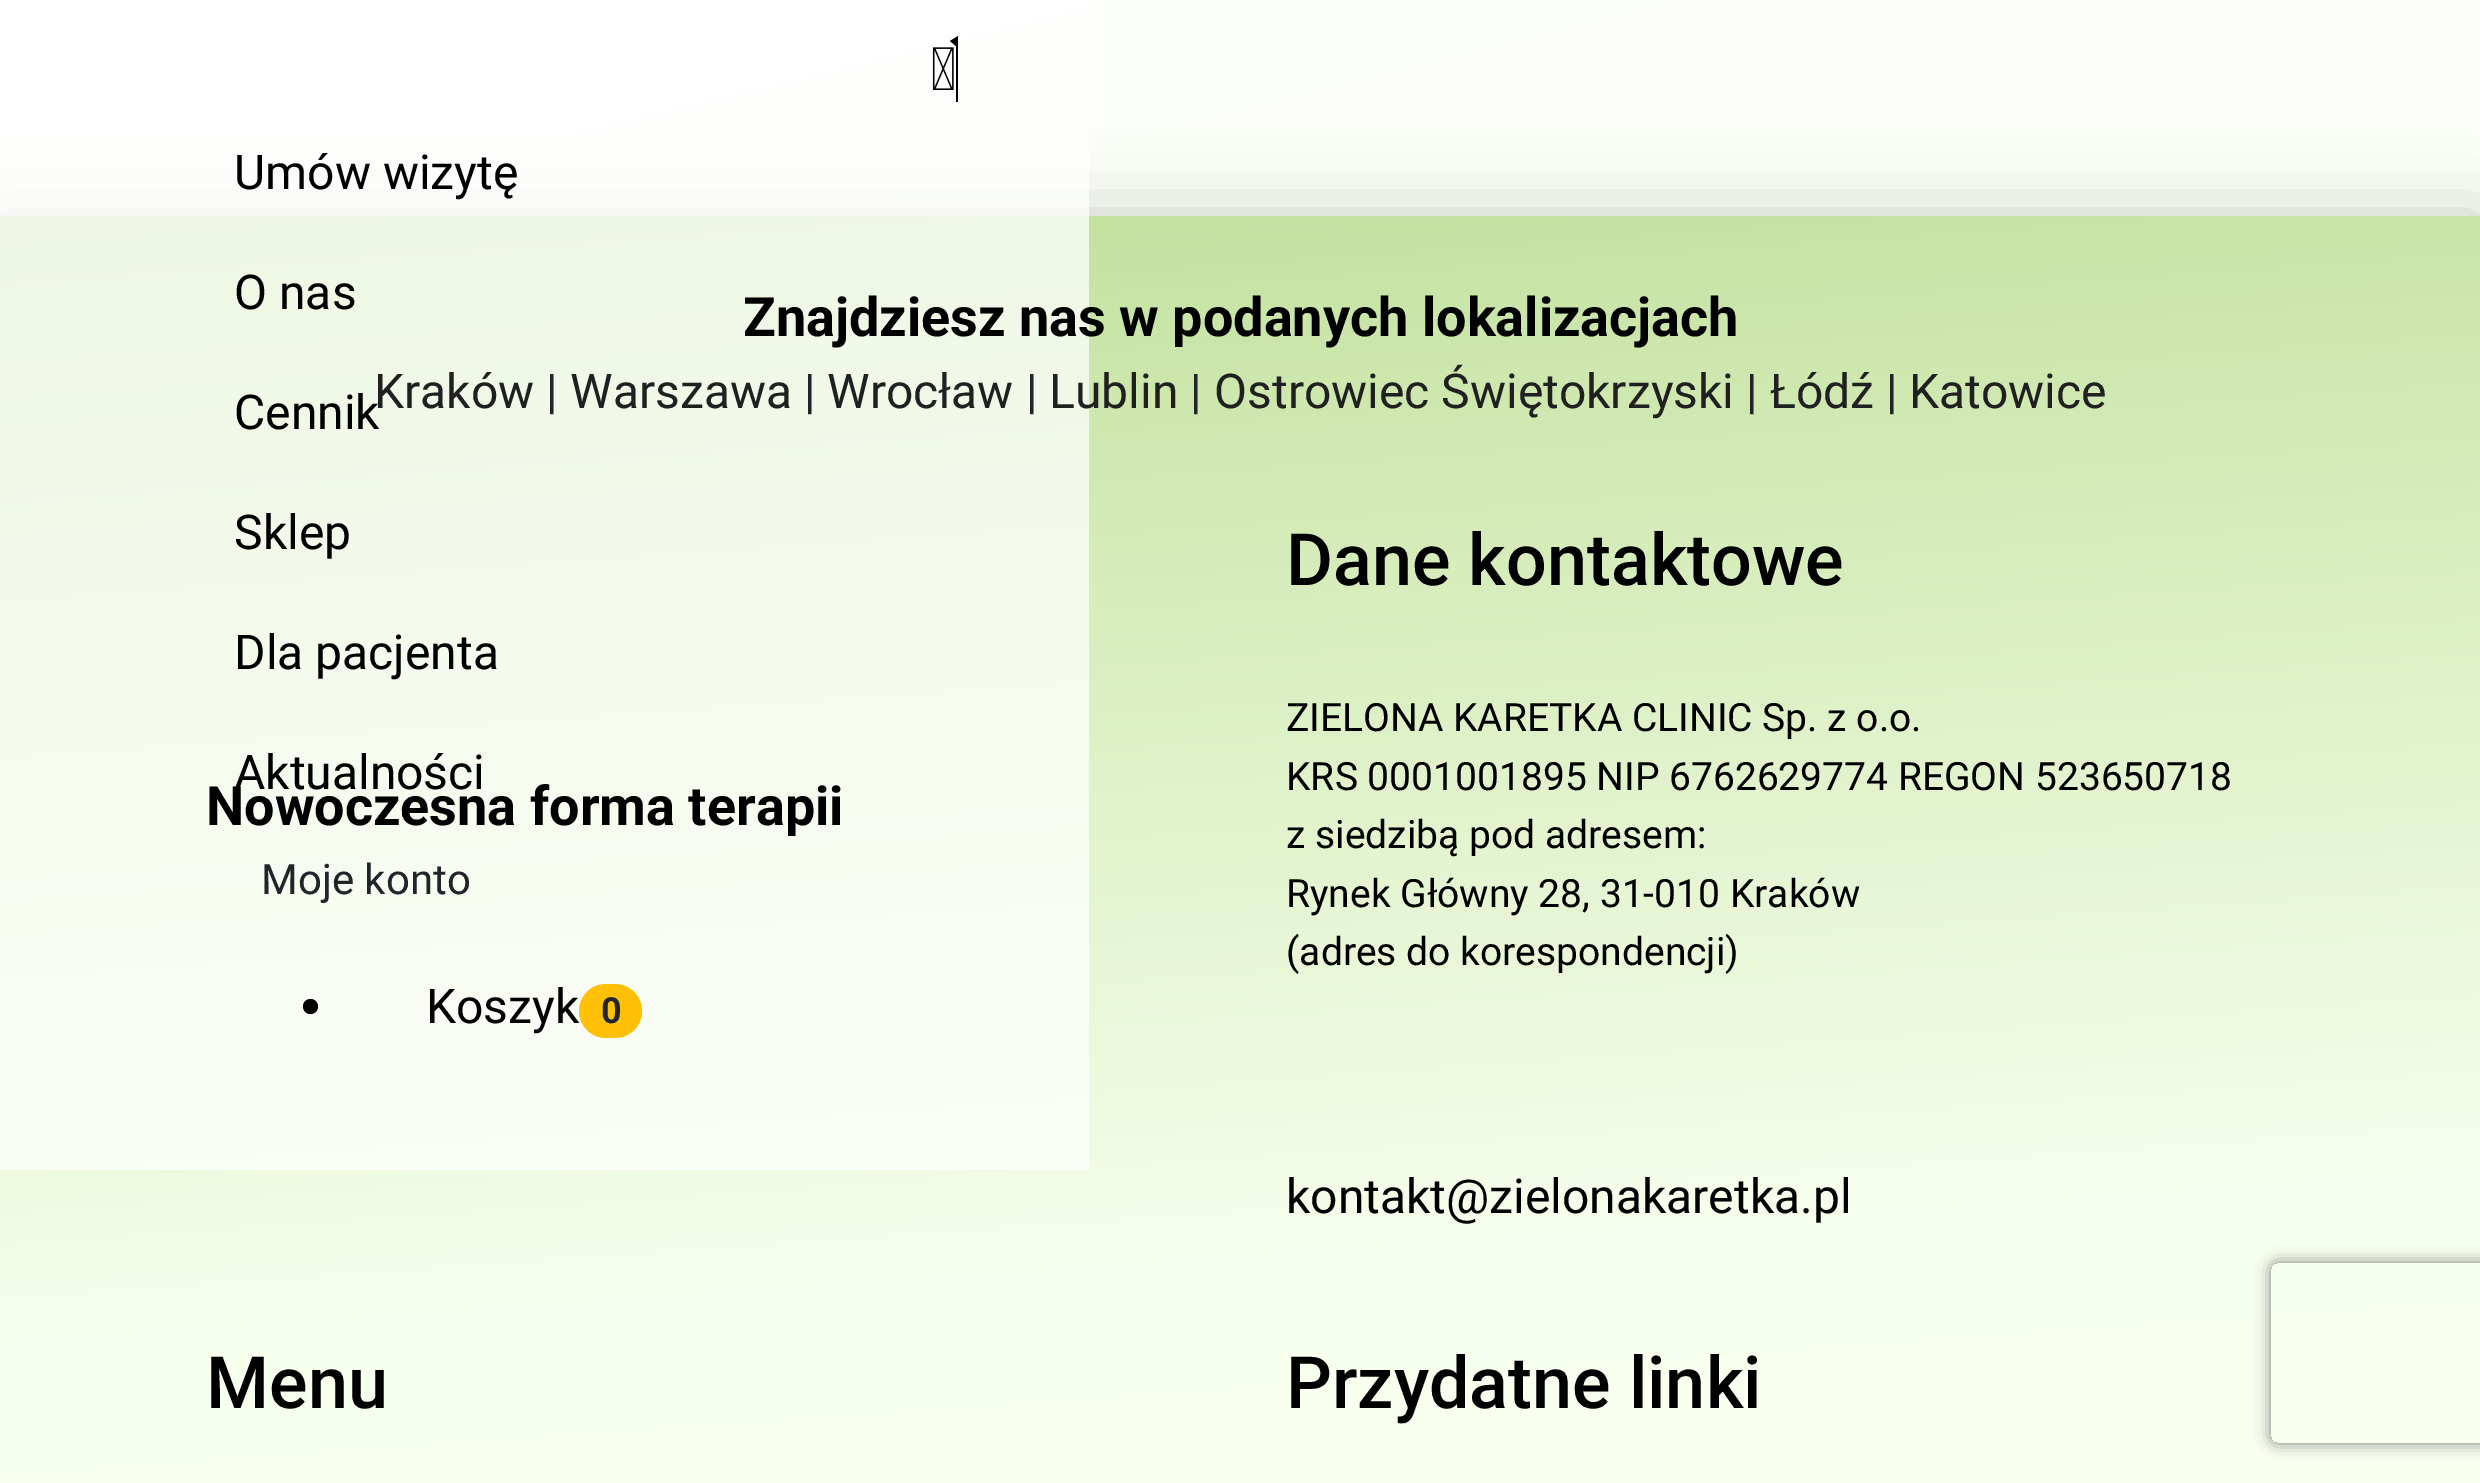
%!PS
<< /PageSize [2480 1483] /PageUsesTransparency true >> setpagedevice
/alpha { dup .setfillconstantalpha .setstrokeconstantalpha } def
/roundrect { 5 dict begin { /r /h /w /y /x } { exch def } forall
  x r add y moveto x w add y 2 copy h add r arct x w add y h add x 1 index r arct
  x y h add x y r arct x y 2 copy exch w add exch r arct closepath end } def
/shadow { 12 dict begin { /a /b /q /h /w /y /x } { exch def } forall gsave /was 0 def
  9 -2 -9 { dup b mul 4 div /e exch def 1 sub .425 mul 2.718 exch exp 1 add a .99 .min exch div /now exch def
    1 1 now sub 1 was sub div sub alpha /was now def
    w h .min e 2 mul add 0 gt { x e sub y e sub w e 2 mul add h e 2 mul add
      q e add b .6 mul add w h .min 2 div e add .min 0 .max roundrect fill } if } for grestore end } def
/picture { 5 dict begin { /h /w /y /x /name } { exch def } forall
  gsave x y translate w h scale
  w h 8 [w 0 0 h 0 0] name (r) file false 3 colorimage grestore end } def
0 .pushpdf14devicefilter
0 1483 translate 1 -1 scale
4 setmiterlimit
1 setgray
0 0 2480 1483 rectfill
gsave newpath 0 0 moveto 2480 0 lineto 2480 216 lineto 0 216 lineto closepath clip newpath
<< /ShadingType 2 /ColorSpace /DeviceRGB /Coords [728 -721 1753 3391] /Extend [true true] /Function << /FunctionType 2 /Domain [0 1] /C0 [1 1 1] /C1 [0.953 1 0.89] /N 1 >> >> shfill grestore
0 setgray
0 216 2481 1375 0 36 0.2 shadow
gsave newpath 0 216 moveto 2480 216 lineto 2480 1483 lineto 0 1483 lineto closepath clip newpath
<< /ShadingType 2 /ColorSpace /DeviceRGB /Coords [1351 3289 1130 137] /Extend [true true] /Function << /FunctionType 3 /Domain [0 1] /Functions [<< /FunctionType 2 /Domain [0 1] /C0 [1 1 1] /C1 [0.969 1 0.929] /N 1 >> << /FunctionType 2 /Domain [0 1] /C0 [0.969 1 0.929] /C1 [0.757 0.878 0.608] /N 1 >>] /Bounds [0.64] /Encode [0 1 0 1] >> >> shfill grestore
0.72 alpha
1 setgray
0 0 1089 1170 rectfill
1 alpha
(img1.rgb) 932 47 22 43 picture
0 setgray
newpath 958 36 moveto 958 102 lineto 956 102 lineto 956 46 lineto 950 41 lineto closepath fill
/Roboto-Regular [48 0 0 -48 0 0] selectfont
234 189 moveto (Umów wizytę) show
234 309 moveto (O nas) show
234 429 moveto (Cennik) show
234 549 moveto (Sklep) show
234 669 moveto (Dla pacjenta) show
234 789 moveto (Aktualności) show
/Roboto-Regular [42 0 0 -42 0 0] selectfont
0.129 0.145 0.161 setrgbcolor
261 894 moveto (Moje konto) show
0 setgray
newpath 310.5 1006.5 7.5 0 360 arc closepath fill
/Roboto-Regular [48 0 0 -48 0 0] selectfont
426 1023 moveto (Koszyk) show
1 0.757 0.027 setrgbcolor
579 984 63 54 27 roundrect fill
/Roboto-Bold [36 0 0 -36 0 0] selectfont
0.129 0.145 0.161 setrgbcolor
601 1023 moveto (0) show
/Roboto-Bold [54 0 0 -54 0 0] selectfont
0 setgray
743 336 moveto (Znajdziesz nas w podanych lokalizacjach) show
/Roboto-Regular [48 0 0 -48 0 0] selectfont
0.125 setgray
374 408 moveto (Kraków) show
0.129 0.145 0.161 setrgbcolor
546 408 moveto (|) show
0.125 setgray
570 408 moveto (Warszawa) show
0.129 0.145 0.161 setrgbcolor
804 408 moveto (|) show
0.125 setgray
827 408 moveto (Wrocław) show
0.129 0.145 0.161 setrgbcolor
1026 408 moveto (|) show
0.125 setgray
1049 408 moveto (Lublin) show
0.129 0.145 0.161 setrgbcolor
1190 408 moveto (|) show
0.125 setgray
1214 408 moveto (Ostrowiec Świętokrzyski) show
0.129 0.145 0.161 setrgbcolor
1746 408 moveto (|) show
0.125 setgray
1770 408 moveto (Łódź) show
0.129 0.145 0.161 setrgbcolor
1886 408 moveto (|) show
0.125 setgray
1909 408 moveto (Katowice) show
/Roboto-Bold [54 0 0 -54 0 0] selectfont
0 setgray
206 825 moveto (Nowoczesna forma terapii) show
/Roboto-Medium [72 0 0 -72 0 0] selectfont
1286 585 moveto (Dane kontaktowe) show
/Roboto-Regular [39 0 0 -39 0 0] selectfont
1286 731 moveto (ZIELONA KARETKA CLINIC Sp. z o.o.) show
1286 790 moveto (KRS 0001001895 NIP 6762629774 REGON 523650718) show
1286 848 moveto (z siedzibą pod adresem:) show
1286 907 moveto (Rynek Główny 28, 31-010 Kraków) show
1286 965 moveto (\(adres do korespondencji\)) show
/Roboto-Regular [48 0 0 -48 0 0] selectfont
1286 1213 moveto (kontakt@zielonakaretka.pl) show
/Roboto-Medium [72 0 0 -72 0 0] selectfont
206 1408 moveto (Menu) show
1286 1408 moveto (Przydatne linki) show
gsave
newpath 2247 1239 moveto 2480 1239 lineto 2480 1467 lineto 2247 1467 lineto closepath 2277 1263 moveto 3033 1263 lineto 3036.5 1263 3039 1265.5 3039 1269 curveto 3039 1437 lineto 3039 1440.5 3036.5 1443 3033 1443 curveto 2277 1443 lineto 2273.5 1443 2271 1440.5 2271 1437 curveto 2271 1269 lineto 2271 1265.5 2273.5 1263 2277 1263 curveto closepath eoclip newpath
0.502 setgray
2271 1263 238 180 6 7.5 1 shadow
grestore
.poppdf14devicefilter showpage
